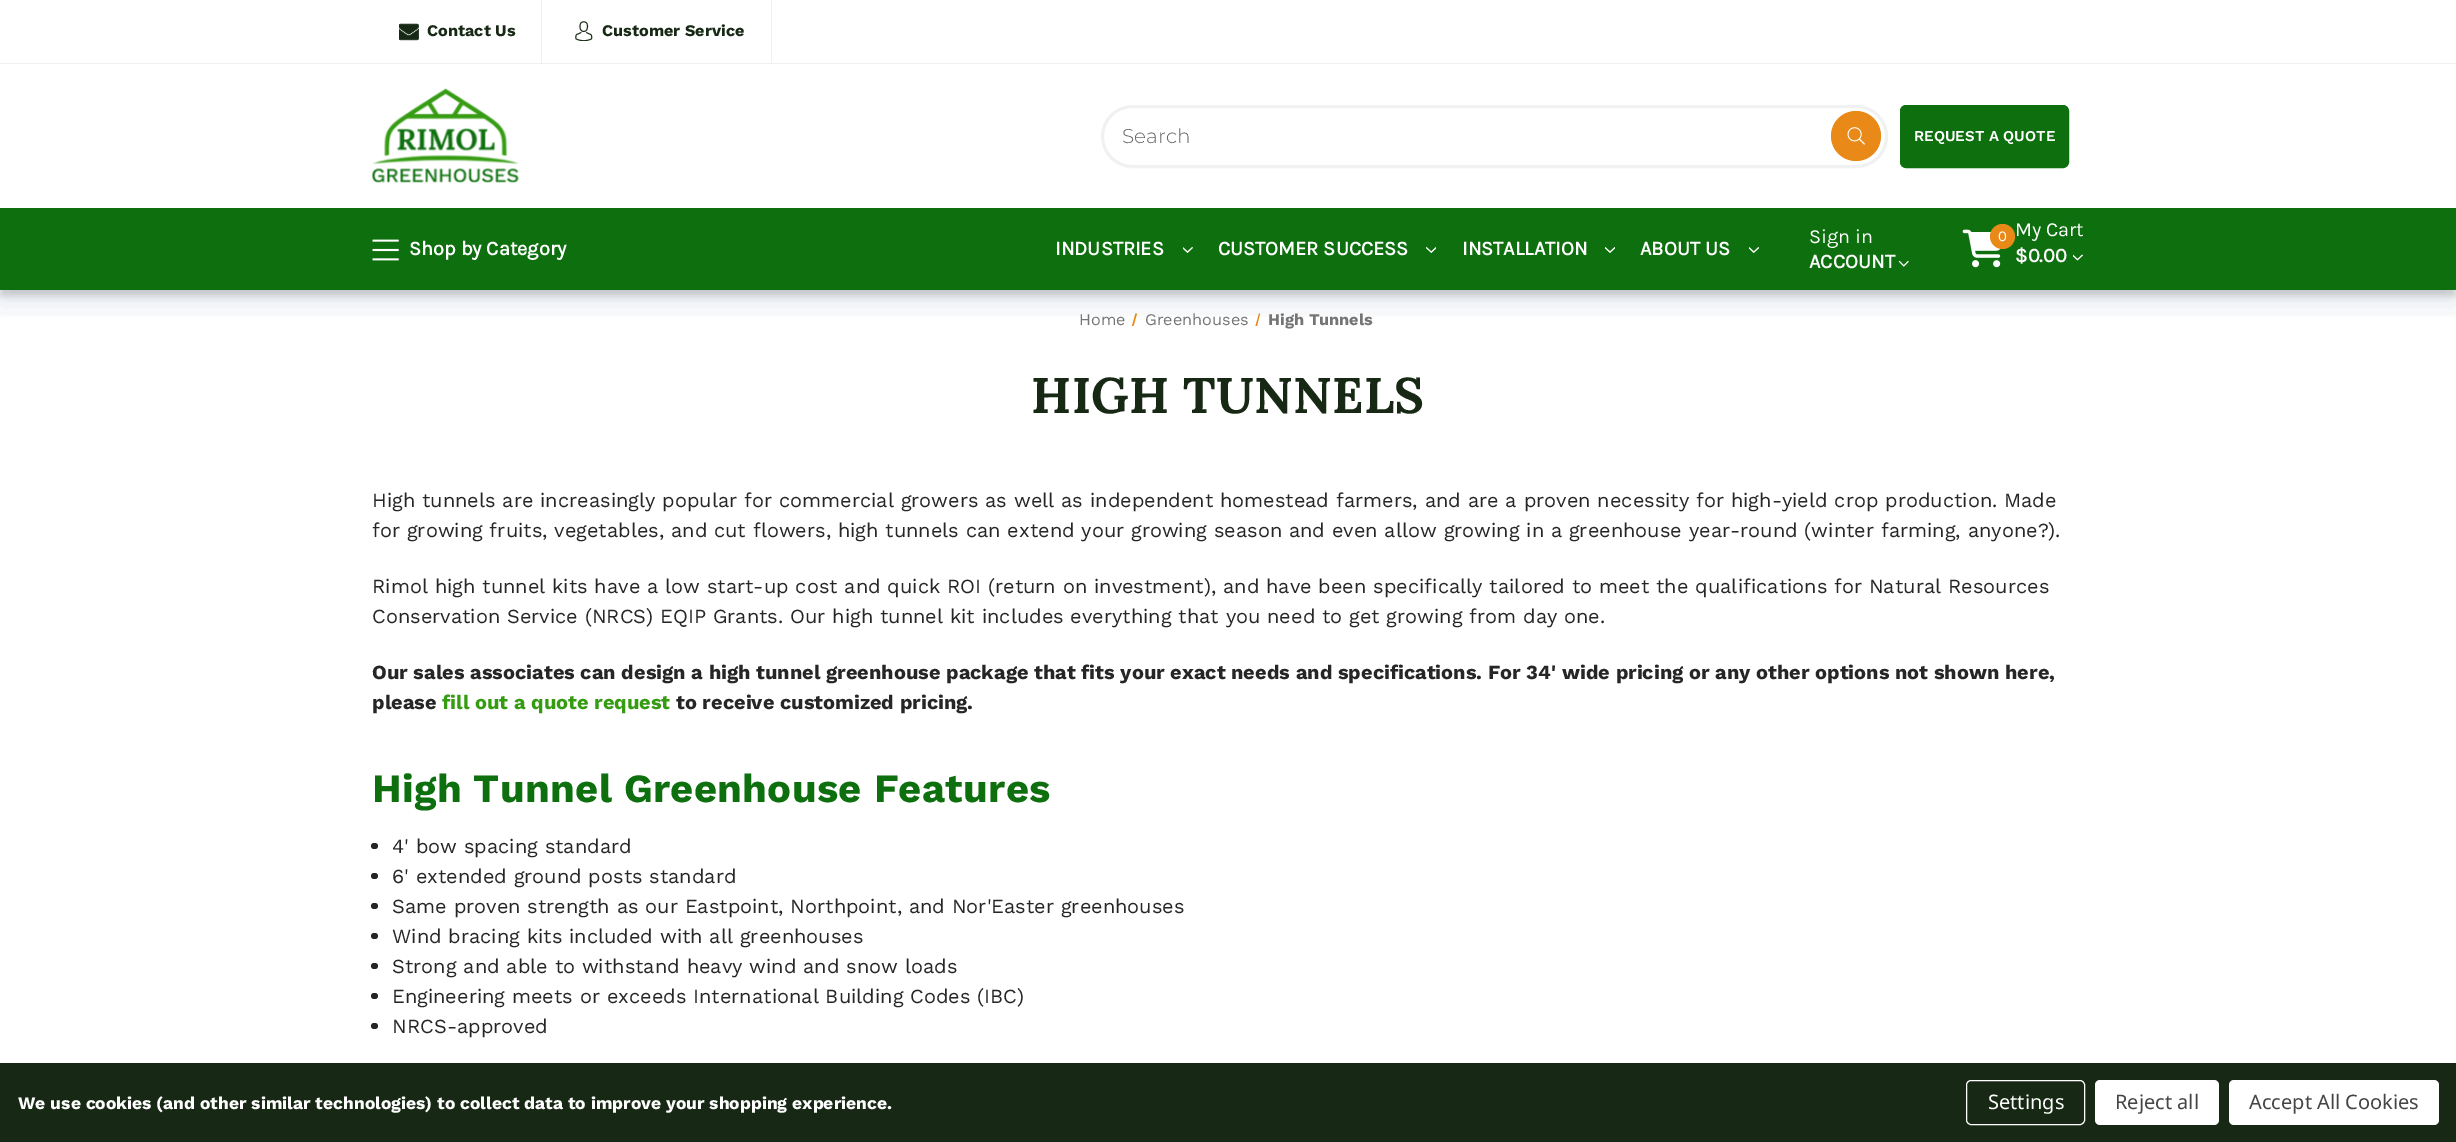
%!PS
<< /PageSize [2456 1142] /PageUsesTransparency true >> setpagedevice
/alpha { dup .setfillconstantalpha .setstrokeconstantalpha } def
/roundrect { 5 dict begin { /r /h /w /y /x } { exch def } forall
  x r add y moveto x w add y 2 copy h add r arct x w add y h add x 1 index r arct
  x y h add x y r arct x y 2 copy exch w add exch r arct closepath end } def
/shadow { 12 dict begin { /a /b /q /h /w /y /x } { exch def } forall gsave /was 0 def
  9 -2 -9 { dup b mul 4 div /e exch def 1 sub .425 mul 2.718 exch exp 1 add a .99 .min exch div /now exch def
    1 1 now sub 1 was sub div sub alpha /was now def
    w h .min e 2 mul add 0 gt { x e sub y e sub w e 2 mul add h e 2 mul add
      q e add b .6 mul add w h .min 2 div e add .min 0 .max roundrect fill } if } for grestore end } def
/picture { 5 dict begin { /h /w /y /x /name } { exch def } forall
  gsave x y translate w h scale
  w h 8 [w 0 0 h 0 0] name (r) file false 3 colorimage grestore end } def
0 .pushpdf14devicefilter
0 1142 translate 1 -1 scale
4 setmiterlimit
1 setgray
0 0 2456 1142 rectfill
0.941 setgray
0 63 2456 1 rectfill
541 0 1 63 rectfill
(img1.rgb) 399 23 20 18 picture
/WorkSans-Bold [16.25 0 0 -16.25 0 0] selectfont
0.09 0.161 0.082 setrgbcolor
427 36 moveto (Contact Us) show
0.941 setgray
771 0 1 63 rectfill
(img2.rgb) 575 21 18 20 picture
0.09 0.161 0.082 setrgbcolor
602 36 moveto (Customer Service) show
0.914 0.537 0.094 setrgbcolor
newpath 1135.5 313.5 moveto 1137 313.5 lineto 1133.5 326 lineto 1132 326 lineto closepath fill
newpath 1259 313.5 moveto 1260 313.5 lineto 1257 326 lineto 1255.5 326 lineto closepath fill
gsave
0 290 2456 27 rectclip
0 0.239 0.42 setrgbcolor
0 79 2456 226 0 14 0.1 shadow
grestore
(img3.rgb) 372 88 148 95 picture
0.945 setgray
3 setlinewidth
1102.5 106.5 784 60 30 roundrect stroke
/Montserrat-Light [20 0 0 -20 0 0] selectfont
0.4 setgray
1122 143 moveto (Search) show
0.914 0.537 0.094 setrgbcolor
newpath 1856 136 25 0 360 arc closepath fill
(img4.rgb) 1847 127 18 18 picture
0.051 0.435 0.051 setrgbcolor
1902 107 165 59 4 roundrect gsave fill grestore
4 setlinewidth
stroke
/WorkSans-SemiBold [15 0 0 -15 0 0] selectfont
1 setgray
1914 141 moveto (REQUEST A QUOTE) show
0 setgray
0 214 2456 82 0 3 0.15 shadow
0.051 0.435 0.051 setrgbcolor
0 208 2456 82 rectfill
(img5.rgb) 372 239 27 22 picture
/Karla-Bold [20 0 0 -20 0 0] selectfont
1 setgray
409 255 moveto (Shop by Category) show
1055 255 moveto (INDUSTRIES) show
(img6.rgb) 1183 247 10 6 picture
1218 255 moveto (CUSTOMER SUCCESS) show
(img7.rgb) 1426 247 10 6 picture
1462 255 moveto (INSTALLATION) show
(img8.rgb) 1605 247 10 6 picture
1640 255 moveto (ABOUT US) show
(img9.rgb) 1749 247 10 6 picture
/Karla-Regular [20 0 0 -20 0 0] selectfont
1809 243 moveto (Sign in) show
/Karla-Bold [20 0 0 -20 0 0] selectfont
0.973 setgray
1809 268 moveto (ACCOUNT) show
(img10.rgb) 1898 260 11 7 picture
(img11.rgb) 1962 229 39 39 picture
0.914 0.537 0.094 setrgbcolor
newpath 2002.5 236.5 12.5 0 360 arc closepath fill
/Karla-Regular [15 0 0 -15 0 0] selectfont
1 setgray
1998 241 moveto (0) show
/Karla-Regular [20 0 0 -20 0 0] selectfont
2015 236 moveto (My Cart) show
/Karla-Bold [20 0 0 -20 0 0] selectfont
0.973 setgray
2015 262 moveto ($0.00) show
(img12.rgb) 2073 254 10 7 picture
/WorkSans-Regular [16.25 0 0 -16.25 0 0] selectfont
0.459 setgray
1079 325 moveto (Home) show
1145 325 moveto (Greenhouses) show
/WorkSans-Bold [16.25 0 0 -16.25 0 0] selectfont
1268 325 moveto (High Tunnels) show
/Lora-Bold [50 0 0 -50 0 0] selectfont
0.09 0.161 0.082 setrgbcolor
1031 413 moveto 0.3 0 (HIGH TUNNELS) ashow
/WorkSans-Regular [20 0 0 -20 0 0] selectfont
0.149 setgray
372 507 moveto (High tunnels are increasingly popular for commercial growers as well as independent homestead farmers, and are a proven necessity for high-yield crop production. Made) show
372 537 moveto (for growing fruits, vegetables, and cut flowers, high tunnels can extend your growing season and even allow growing in a greenhouse year-round \(winter farming, anyone?\).) show
372 593 moveto (Rimol high tunnel kits have a low start-up cost and quick ROI \(return on investment\), and have been specifically tailored to meet the qualifications for Natural Resources) show
372 623 moveto (Conservation Service \(NRCS\) EQIP Grants. Our high tunnel kit includes everything that you need to get growing from day one.) show
/WorkSans-Bold [20 0 0 -20 0 0] selectfont
372 679 moveto (Our sales associates can design a high tunnel greenhouse package that fits your exact needs and specifications. For 34' wide pricing or any other options not shown here,) show
372 709 moveto (please) show
0.208 0.612 0.071 setrgbcolor
442 709 moveto (fill out a quote request) show
0.149 setgray
676 709 moveto (to receive customized pricing.) show
/WorkSans-Bold [40 0 0 -40 0 0] selectfont
0.051 0.435 0.051 setrgbcolor
372 802 moveto 0.3 0 (High Tunnel Greenhouse Features) ashow
0.149 setgray
371 843 7 6 3 roundrect fill
/WorkSans-Regular [20 0 0 -20 0 0] selectfont
392 853 moveto (4' bow spacing standard) show
371 873 7 6 3 roundrect fill
392 883 moveto (6' extended ground posts standard) show
371 903 7 6 3 roundrect fill
392 913 moveto (Same proven strength as our Eastpoint, Northpoint, and Nor'Easter greenhouses) show
371 933 7 6 3 roundrect fill
392 943 moveto (Wind bracing kits included with all greenhouses) show
371 963 7 6 3 roundrect fill
392 973 moveto (Strong and able to withstand heavy wind and snow loads) show
371 993 7 6 3 roundrect fill
392 1003 moveto (Engineering meets or exceeds International Building Codes \(IBC\)) show
371 1023 7 6 3 roundrect fill
392 1033 moveto (NRCS-approved) show
0.09 0.161 0.082 setrgbcolor
0 1063 2456 79 rectfill
/WorkSans-Bold [17.5 0 0 -17.5 0 0] selectfont
1 setgray
18 1109 moveto -0.05 0 (We use cookies \(and other similar technologies\) to collect data to improve your shopping experience.) ashow
1 setlinewidth
1966.5 1080.5 118 44 4.5 roundrect stroke
/NotoSans-Regular [20 0 0 -20 0 0] selectfont
1988 1109 moveto (Settings) show
2095 1080 124 45 5 roundrect fill
0.271 setgray
2115 1109 moveto (Reject all) show
1 setgray
2229 1080 210 45 5 roundrect fill
0.271 setgray
2249 1109 moveto (Accept All Cookies) show
.poppdf14devicefilter showpage
